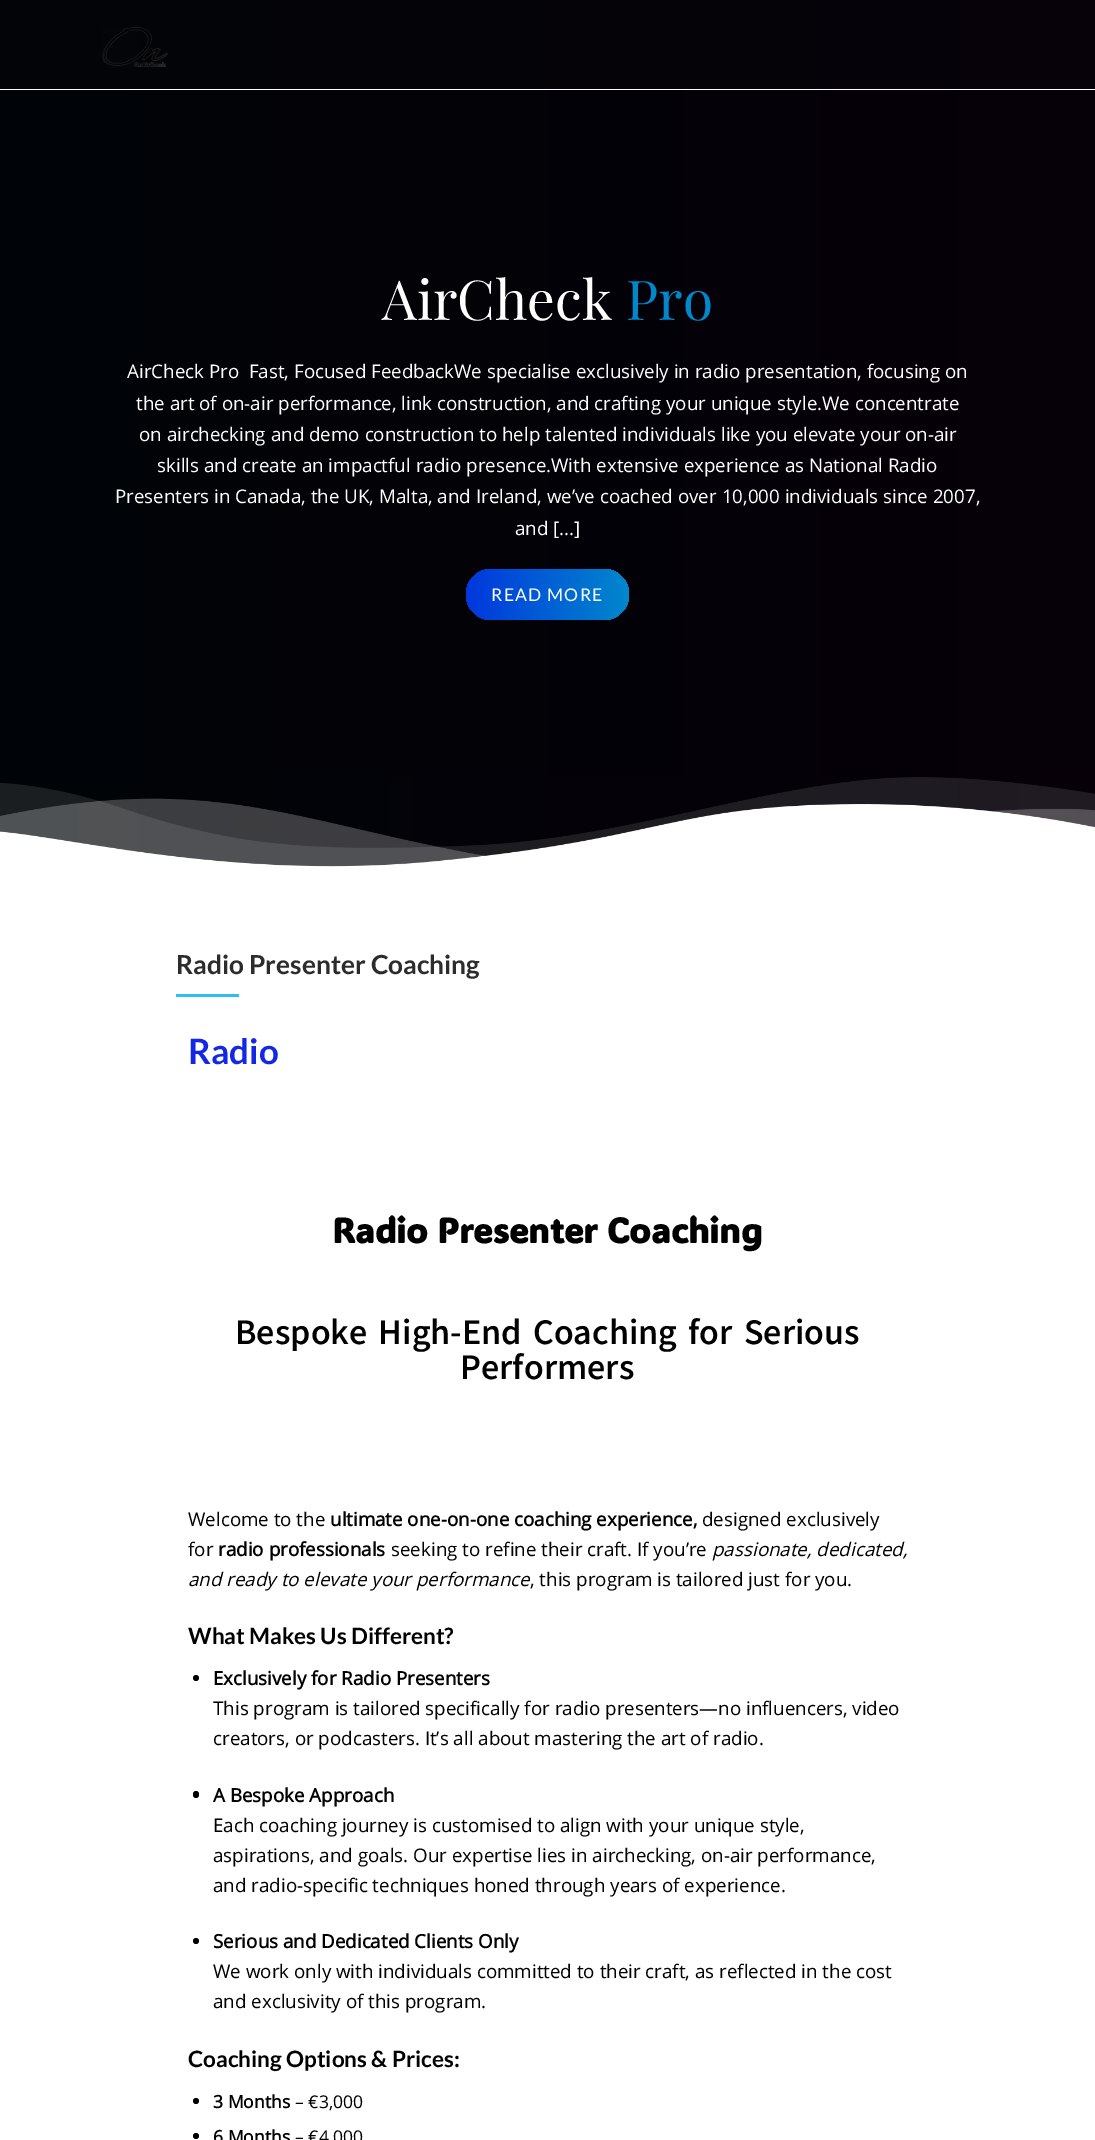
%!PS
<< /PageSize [1095 2140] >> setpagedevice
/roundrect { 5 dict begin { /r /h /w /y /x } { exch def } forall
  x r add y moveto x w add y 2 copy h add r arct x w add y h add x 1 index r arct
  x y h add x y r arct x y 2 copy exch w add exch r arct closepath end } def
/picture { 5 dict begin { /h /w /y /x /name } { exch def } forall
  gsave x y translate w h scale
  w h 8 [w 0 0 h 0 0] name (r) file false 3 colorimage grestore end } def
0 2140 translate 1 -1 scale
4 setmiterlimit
1 setgray
0 0 1095 2140 rectfill
gsave newpath 0 0 moveto 1095 0 lineto 1095 89 lineto 0 89 lineto closepath clip newpath
<< /ShadingType 2 /ColorSpace /DeviceRGB /Coords [1095 438 0 438] /Extend [true true] /Function << /FunctionType 2 /Domain [0 1] /C0 [0.031 0.008 0.035] /C1 [0.008 0.02 0.031] /N 1 >> >> shfill grestore
(img1.rgb) 102 27 66 40 picture
gsave newpath 0 90 moveto 1095 90 lineto 1095 867 lineto 0 867 lineto closepath clip newpath
<< /ShadingType 2 /ColorSpace /DeviceRGB /Coords [1095 438 0 438] /Extend [true true] /Function << /FunctionType 2 /Domain [0 1] /C0 [0.027 0 0.035] /C1 [0 0.016 0.027] /N 1 >> >> shfill grestore
/PlayfairDisplay-Regular [55 0 0 -55 0 0] selectfont
382 320 moveto (AirCheck) show
0 0.533 0.8 setrgbcolor
626 320 moveto (Pro) show
/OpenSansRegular-Regular [18.75 0 0 -18.75 0 0] selectfont
1 setgray
127 378 moveto (AirCheck Pro  Fast, Focused FeedbackWe specialise exclusively in radio presentation, focusing on) show
136 410 moveto (the art of on-air performance, link construction, and crafting your unique style.We concentrate) show
139 441 moveto (on airchecking and demo construction to help talented individuals like you elevate your on-air) show
157 472 moveto (skills and create an impactful radio presence.With extensive experience as National Radio) show
115 503 moveto (Presenters in Canada, the UK, Malta, and Ireland, we’ve coached over 10,000 individuals since 2007,) show
515 535 moveto (and [...]) show
gsave 466 569 163 51 25.5 roundrect clip newpath
<< /ShadingType 2 /ColorSpace /DeviceRGB /Coords [466 594 629 594] /Extend [true true] /Function << /FunctionType 2 /Domain [0 1] /C0 [0 0.216 0.867] /C1 [0 0.533 0.8] /N 1 >> >> shfill grestore
/Lato-Regular [17.5 0 0 -17.5 0 0] selectfont
491 601 moveto 1.25 0 (READ MORE) ashow
(img2.rgb) 0 777 1095 98 picture
/Lato-Bold [26.25 0 0 -26.25 0 0] selectfont
0.173 setgray
176 974 moveto (Radio Presenter Coaching) show
0.184 0.745 0.937 setrgbcolor
176 994 63 3 rectfill
/Lato-Bold [35 0 0 -35 0 0] selectfont
0.075 0.157 0.906 setrgbcolor
188 1064 moveto (Radio) show
/ADLaMDisplay-Bold [35 0 0 -35 0 0] selectfont
0 setgray
332 1243 moveto (Radio Presenter Coaching) show
/Akatab-Bold [35 0 0 -35 0 0] selectfont
235 1344 moveto (Bespoke High-End Coaching for Serious) show
460 1379 moveto (Performers) show
/OpenSansRegular-Regular [18.75 0 0 -18.75 0 0] selectfont
188 1526 moveto (Welcome to the) show
/OpenSansRegular-Bold [18.75 0 0 -18.75 0 0] selectfont
330 1526 moveto (ultimate one-on-one coaching experience,) show
/OpenSansRegular-Regular [18.75 0 0 -18.75 0 0] selectfont
702 1526 moveto (designed exclusively) show
188 1556 moveto (for) show
/OpenSansRegular-Bold [18.75 0 0 -18.75 0 0] selectfont
218 1556 moveto (radio professionals) show
/OpenSansRegular-Regular [18.75 0 0 -18.75 0 0] selectfont
391 1556 moveto (seeking to refine their craft. If you’re) show
/OpenSansRegular-Italic [18.75 0 0 -18.75 0 0] selectfont
712 1556 moveto (passionate, dedicated,) show
188 1586 moveto (and ready to elevate your performance) show
/OpenSansRegular-Regular [18.75 0 0 -18.75 0 0] selectfont
530 1586 moveto (, this program is tailored just for you.) show
/Lato-Bold [22.5 0 0 -22.5 0 0] selectfont
188 1644 moveto (What Makes Us Different?) show
newpath 196 1678 3 0 360 arc closepath fill
/OpenSansRegular-Bold [18.75 0 0 -18.75 0 0] selectfont
213 1685 moveto (Exclusively for Radio Presenters) show
/OpenSansRegular-Regular [18.75 0 0 -18.75 0 0] selectfont
213 1715 moveto (This program is tailored specifically for radio presenters—no influencers, video) show
213 1745 moveto (creators, or podcasters. It’s all about mastering the art of radio.) show
193 1791 6 7 3 roundrect fill
/OpenSansRegular-Bold [18.75 0 0 -18.75 0 0] selectfont
213 1802 moveto (A Bespoke Approach) show
/OpenSansRegular-Regular [18.75 0 0 -18.75 0 0] selectfont
213 1832 moveto (Each coaching journey is customised to align with your unique style,) show
213 1862 moveto (aspirations, and goals. Our expertise lies in airchecking, on-air performance,) show
213 1892 moveto (and radio-specific techniques honed through years of experience.) show
newpath 196 1941 3 0 360 arc closepath fill
/OpenSansRegular-Bold [18.75 0 0 -18.75 0 0] selectfont
213 1948 moveto (Serious and Dedicated Clients Only) show
/OpenSansRegular-Regular [18.75 0 0 -18.75 0 0] selectfont
213 1978 moveto (We work only with individuals committed to their craft, as reflected in the cost) show
213 2008 moveto (and exclusivity of this program.) show
/Lato-Bold [22.5 0 0 -22.5 0 0] selectfont
188 2067 moveto (Coaching Options & Prices:) show
newpath 196 2101 3 0 360 arc closepath fill
/OpenSansRegular-Bold [17.5 0 0 -17.5 0 0] selectfont
213 2108 moveto (3 Months) show
/OpenSansRegular-Regular [17.5 0 0 -17.5 0 0] selectfont
295 2108 moveto (– €3,000) show
newpath 196 2136 3 0 360 arc closepath fill
/OpenSansRegular-Bold [17.5 0 0 -17.5 0 0] selectfont
213 2143 moveto (6 Months) show
/OpenSansRegular-Regular [17.5 0 0 -17.5 0 0] selectfont
295 2143 moveto (– €4,000) show
showpage
